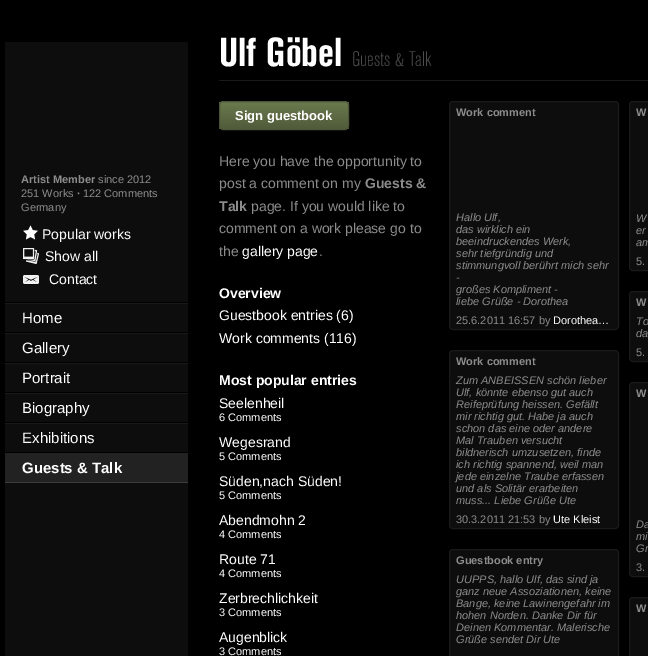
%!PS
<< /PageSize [648 656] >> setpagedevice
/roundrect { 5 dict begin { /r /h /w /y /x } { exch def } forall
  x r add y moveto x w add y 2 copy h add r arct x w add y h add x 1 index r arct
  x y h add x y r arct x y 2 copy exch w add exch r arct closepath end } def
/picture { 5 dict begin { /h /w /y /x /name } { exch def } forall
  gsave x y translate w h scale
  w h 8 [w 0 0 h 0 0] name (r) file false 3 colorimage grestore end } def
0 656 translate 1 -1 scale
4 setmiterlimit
0 setgray
0 0 648 656 rectfill
0.051 setgray
5 42 183 614 rectfill
/LiberationSans-Bold [11 0 0 -11 0 0] selectfont
0.549 setgray
21 183 moveto (Artist Member) show
/LiberationSans-Regular [11 0 0 -11 0 0] selectfont
98 183 moveto (since 2012) show
21 197 moveto (251 Works) show
/LiberationSans-Bold [11 0 0 -11 0 0] selectfont
77 197 moveto (·) show
/LiberationSans-Regular [11 0 0 -11 0 0] selectfont
83 197 moveto (122 Comments) show
21 211 moveto (Germany) show
0.098 setgray
5 303 183 1 rectfill
0 setgray
5 302 183 1 rectfill
(img1.rgb) 23 225 15 15 picture
/LiberationSans-Regular [14 0 0 -14 0 0] selectfont
1 setgray
42 239 moveto (Popular works) show
(img2.rgb) 23 248 16 16 picture
45 261 moveto (Show all) show
(img3.rgb) 23 275 16 10 picture
49 284 moveto (Contact) show
0.098 setgray
5 333 183 1 rectfill
0 setgray
5 332 183 1 rectfill
/LiberationSans-Regular [15 0 0 -15 0 0] selectfont
1 setgray
22 323 moveto (Home) show
0.098 setgray
5 363 183 1 rectfill
0 setgray
5 362 183 1 rectfill
1 setgray
22 353 moveto (Gallery) show
0.098 setgray
5 393 183 1 rectfill
0 setgray
5 392 183 1 rectfill
1 setgray
22 383 moveto (Portrait) show
0.098 setgray
5 423 183 1 rectfill
0 setgray
5 422 183 1 rectfill
1 setgray
22 413 moveto (Biography) show
0 setgray
5 452 183 1 rectfill
1 setgray
22 443 moveto (Exhibitions) show
0.133 setgray
5 453 183 29 rectfill
0.235 setgray
5 482 183 1 rectfill
/LiberationSans-Bold [15 0 0 -15 0 0] selectfont
1 setgray
22 473 moveto (Guests & Talk) show
/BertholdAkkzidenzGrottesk-Bold [40 0 0 -40 0 0] selectfont
219 66 moveto (Ulf Göbel) show
/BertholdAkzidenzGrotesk-Light [21 0 0 -21 0 0] selectfont
0.298 setgray
352 66 moveto (Guests & Talk) show
0.098 setgray
219 80 429 1 rectfill
gsave
219 101 130 29 4 roundrect clip newpath
gsave newpath 219 102 moveto 349 102 lineto 349 129 lineto 219 129 lineto closepath clip newpath
<< /ShadingType 2 /ColorSpace /DeviceRGB /Coords [284 102 284 129] /Extend [true true] /Function << /FunctionType 2 /Domain [0 1] /C0 [0.42 0.478 0.306] /C1 [0.314 0.357 0.227] /N 1 >> >> shfill grestore
grestore
0.294 0.329 0.212 setrgbcolor
219.5 101.5 129 28 3.5 roundrect stroke
/LiberationSans-Bold [13 0 0 -13 0 0] selectfont
1 setgray
235 120 moveto (Sign guestbook) show
/LiberationSans-Regular [14 0 0 -14 0 0] selectfont
0.549 setgray
219 166 moveto (Here you have the opportunity to) show
219 188 moveto (post a comment on my) show
/LiberationSans-Bold [14 0 0 -14 0 0] selectfont
365 188 moveto (Guests &) show
219 211 moveto (Talk) show
/LiberationSans-Regular [14 0 0 -14 0 0] selectfont
251 211 moveto (page. If you would like to) show
219 233 moveto (comment on a work please go to) show
219 256 moveto (the) show
1 setgray
242 256 moveto (gallery page) show
0.549 setgray
319 256 moveto (.) show
/LiberationSans-Bold [14 0 0 -14 0 0] selectfont
1 setgray
219 298 moveto (Overview) show
/LiberationSans-Regular [14 0 0 -14 0 0] selectfont
219 320 moveto (Guestbook entries \(6\)) show
219 343 moveto (Work comments \(116\)) show
/LiberationSans-Bold [14 0 0 -14 0 0] selectfont
219 385 moveto (Most popular entries) show
/LiberationSans-Regular [14 0 0 -14 0 0] selectfont
219 408 moveto (Seelenheil) show
/LiberationSans-Regular [11 0 0 -11 0 0] selectfont
219 421 moveto (6 Comments) show
/LiberationSans-Regular [14 0 0 -14 0 0] selectfont
219 447 moveto (Wegesrand) show
/LiberationSans-Regular [11 0 0 -11 0 0] selectfont
219 460 moveto (5 Comments) show
/LiberationSans-Regular [14 0 0 -14 0 0] selectfont
219 486 moveto (Süden,nach Süden!) show
/LiberationSans-Regular [11 0 0 -11 0 0] selectfont
219 499 moveto (5 Comments) show
/LiberationSans-Regular [14 0 0 -14 0 0] selectfont
219 525 moveto (Abendmohn 2) show
/LiberationSans-Regular [11 0 0 -11 0 0] selectfont
219 538 moveto (4 Comments) show
/LiberationSans-Regular [14 0 0 -14 0 0] selectfont
219 564 moveto (Route 71) show
/LiberationSans-Regular [11 0 0 -11 0 0] selectfont
219 577 moveto (4 Comments) show
/LiberationSans-Regular [14 0 0 -14 0 0] selectfont
219 603 moveto (Zerbrechlichkeit) show
/LiberationSans-Regular [11 0 0 -11 0 0] selectfont
219 616 moveto (3 Comments) show
/LiberationSans-Regular [14 0 0 -14 0 0] selectfont
219 642 moveto (Augenblick) show
/LiberationSans-Regular [11 0 0 -11 0 0] selectfont
219 655 moveto (3 Comments) show
0.051 setgray
449.5 101.5 169 228 3.5 roundrect gsave fill grestore
0.102 setgray
stroke
/LiberationSans-Bold [11 0 0 -11 0 0] selectfont
0.549 setgray
456 116 moveto (Work comment) show
/LiberationSans-Italic [11 0 0 -11 0 0] selectfont
456 221 moveto (Hallo Ulf,) show
456 233 moveto (das wirklich ein) show
456 245 moveto (beeindruckendes Werk,) show
456 257 moveto (sehr tiefgründig und) show
456 269 moveto (stimmungvoll berührt mich sehr) show
456 281 moveto (-) show
456 293 moveto (großes Kompliment -) show
456 305 moveto (liebe Grüße - Dorothea) show
/LiberationSans-Regular [11 0 0 -11 0 0] selectfont
456 324 moveto (25.6.2011 16:57 by) show
1 setgray
553 324 moveto (Dorothea…) show
0.051 setgray
449.5 350.5 169 178 3.5 roundrect gsave fill grestore
0.102 setgray
stroke
/LiberationSans-Bold [11 0 0 -11 0 0] selectfont
0.549 setgray
456 365 moveto (Work comment) show
/LiberationSans-Italic [11 0 0 -11 0 0] selectfont
456 384 moveto (Zum ANBEISSEN schön lieber) show
456 396 moveto (Ulf, könnte ebenso gut auch) show
456 408 moveto (Reifeprüfung heissen. Gefällt) show
456 420 moveto (mir richtig gut. Habe ja auch) show
456 432 moveto (schon das eine oder andere) show
456 444 moveto (Mal Trauben versucht) show
456 456 moveto (bildnerisch umzusetzen, finde) show
456 468 moveto (ich richtig spannend, weil man) show
456 480 moveto (jede einzelne Traube erfassen) show
456 492 moveto (und als Solitär erarbeiten) show
456 504 moveto (muss... Liebe Grüße Ute) show
/LiberationSans-Regular [11 0 0 -11 0 0] selectfont
456 523 moveto (30.3.2011 21:53 by) show
1 setgray
553 523 moveto (Ute Kleist) show
0.051 setgray
449.5 549.5 169 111 3.5 roundrect gsave fill grestore
0.102 setgray
stroke
/LiberationSans-Bold [11 0 0 -11 0 0] selectfont
0.549 setgray
456 564 moveto (Guestbook entry) show
/LiberationSans-Italic [11 0 0 -11 0 0] selectfont
456 583 moveto (UUPPS, hallo Ulf, das sind ja) show
456 595 moveto (ganz neue Assoziationen, keine) show
456 607 moveto (Bange, keine Lawinengefahr im) show
456 619 moveto (hohen Norden. Danke Dir für) show
456 631 moveto (Deinen Kommentar. Malerische) show
456 643 moveto (Grüße sendet Dir Ute) show
0.051 setgray
629.5 101.5 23 169 3.5 roundrect gsave fill grestore
0.102 setgray
stroke
/LiberationSans-Bold [11 0 0 -11 0 0] selectfont
0.549 setgray
636 116 moveto (W) show
/LiberationSans-Italic [11 0 0 -11 0 0] selectfont
636 222 moveto (W) show
636 234 moveto (er) show
636 246 moveto (am) show
/LiberationSans-Regular [11 0 0 -11 0 0] selectfont
636 265 moveto (5.) show
0.051 setgray
629.5 291.5 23 70 3.5 roundrect gsave fill grestore
0.102 setgray
stroke
/LiberationSans-Bold [11 0 0 -11 0 0] selectfont
0.549 setgray
636 306 moveto (W) show
/LiberationSans-Italic [11 0 0 -11 0 0] selectfont
636 325 moveto (To) show
636 337 moveto (da) show
/LiberationSans-Regular [11 0 0 -11 0 0] selectfont
636 356 moveto (5.) show
0.051 setgray
629.5 382.5 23 194 3.5 roundrect gsave fill grestore
0.102 setgray
stroke
/LiberationSans-Bold [11 0 0 -11 0 0] selectfont
0.549 setgray
636 397 moveto (W) show
/LiberationSans-Italic [11 0 0 -11 0 0] selectfont
636 528 moveto (Da) show
636 540 moveto (mi) show
636 552 moveto (Gr) show
/LiberationSans-Regular [11 0 0 -11 0 0] selectfont
636 571 moveto (3.) show
0.051 setgray
629.5 597.5 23 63 3.5 roundrect gsave fill grestore
0.102 setgray
stroke
/LiberationSans-Bold [11 0 0 -11 0 0] selectfont
0.549 setgray
636 612 moveto (W) show
showpage
